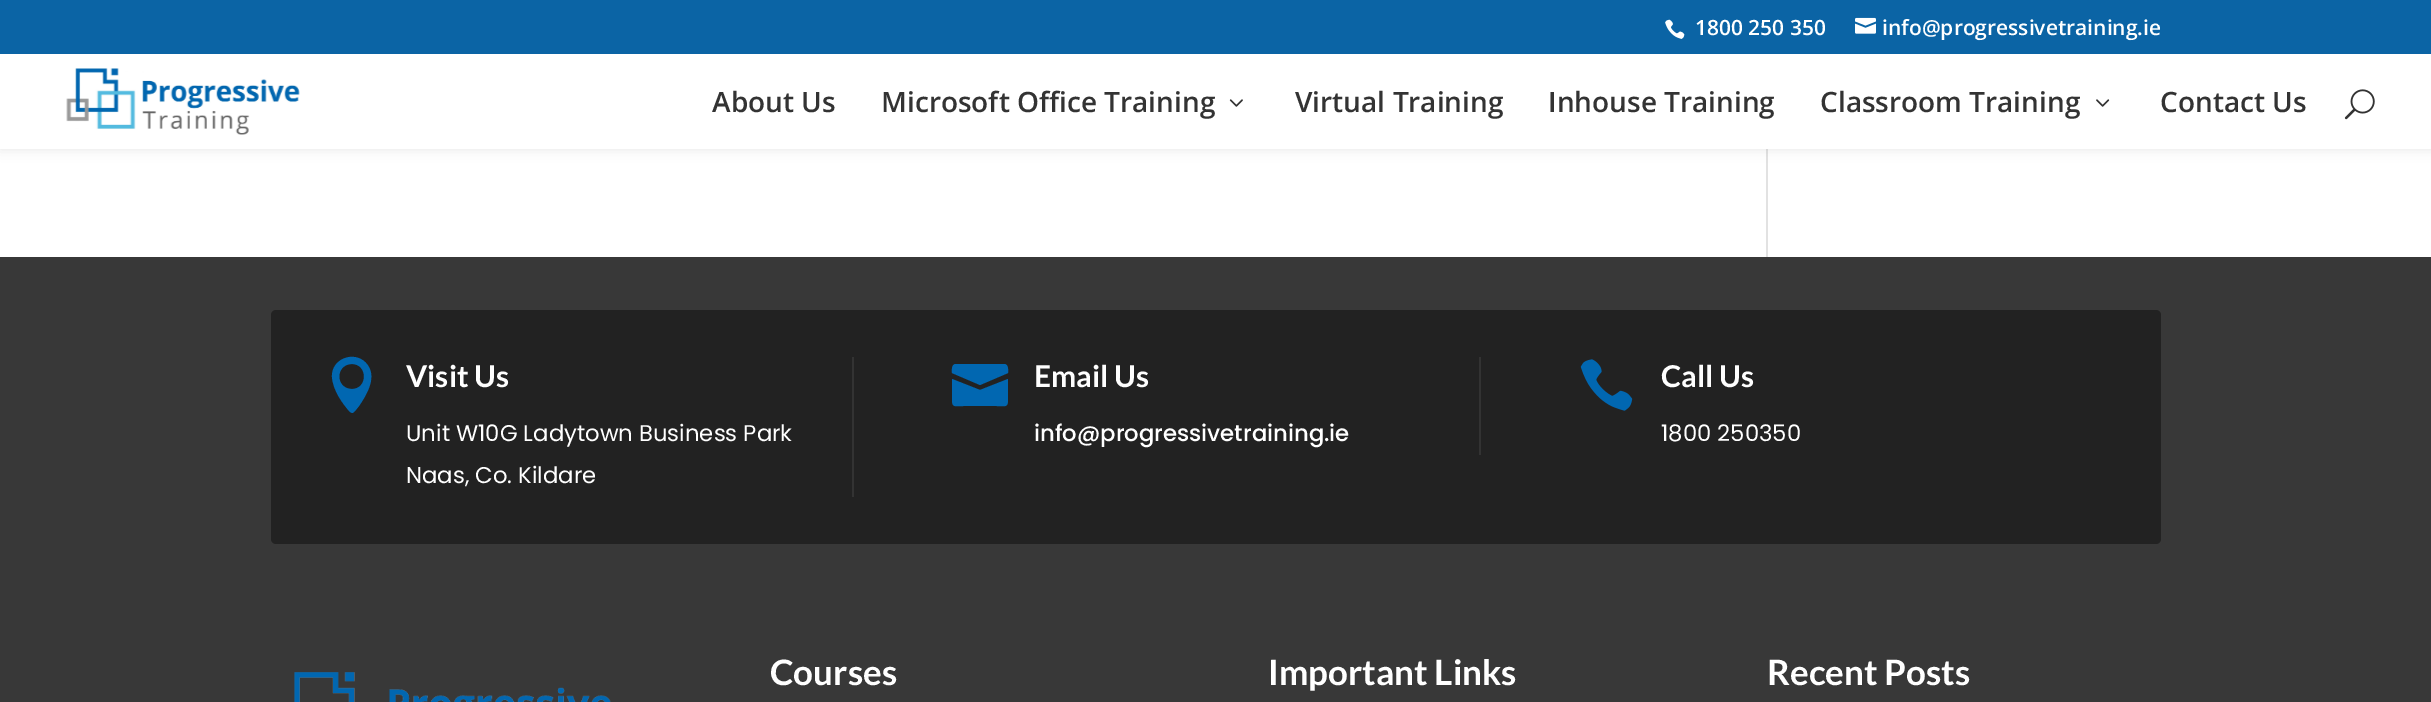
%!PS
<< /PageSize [2431 702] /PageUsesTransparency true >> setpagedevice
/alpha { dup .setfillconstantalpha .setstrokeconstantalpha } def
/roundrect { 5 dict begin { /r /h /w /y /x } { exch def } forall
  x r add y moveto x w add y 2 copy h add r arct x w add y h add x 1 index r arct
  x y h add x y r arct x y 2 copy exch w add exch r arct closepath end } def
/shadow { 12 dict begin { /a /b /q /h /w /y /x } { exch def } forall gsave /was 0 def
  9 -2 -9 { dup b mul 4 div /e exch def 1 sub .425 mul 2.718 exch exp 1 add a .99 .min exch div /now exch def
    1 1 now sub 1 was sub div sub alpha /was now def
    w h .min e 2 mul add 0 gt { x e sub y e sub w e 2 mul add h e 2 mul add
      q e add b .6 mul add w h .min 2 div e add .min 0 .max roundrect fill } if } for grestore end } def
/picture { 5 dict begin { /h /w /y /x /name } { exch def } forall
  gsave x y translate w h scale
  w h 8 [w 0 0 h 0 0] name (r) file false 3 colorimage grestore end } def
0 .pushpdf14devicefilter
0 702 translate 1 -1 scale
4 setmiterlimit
1 setgray
0 0 2431 702 rectfill
0.886 setgray
1766 149 2 108 rectfill
0 setgray
0 54 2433 95 0 6 0.1 shadow
0.043 0.392 0.647 setrgbcolor
0 0 2431 54 rectfill
(img1.rgb) 1665 19 20 20 picture
/OpenSans-SemiBold [21 0 0 -21 0 0] selectfont
1 setgray
1695 35 moveto (1800 250 350) show
(img2.rgb) 1855 17 21 17 picture
1882 35 moveto (info@progressivetraining.ie) show
0 54 2431 95 rectfill
(img3.rgb) 66 68 234 67 picture
/OpenSans-SemiBold [28 0 0 -28 0 0] selectfont
0.2 setgray
712 112 moveto (About Us) show
881 112 moveto (Microsoft Office Training) show
(img4.rgb) 1229 99 14 8 picture
1295 112 moveto (Virtual Training) show
1548 112 moveto (Inhouse Training) show
1820 112 moveto (Classroom Training) show
(img5.rgb) 2096 99 14 8 picture
2160 112 moveto (Contact Us) show
(img6.rgb) 2344 89 31 31 picture
0.22 setgray
0 257 2431 445 rectfill
0.133 setgray
271 310 1890 234 5 roundrect fill
0.2 setgray
852 357 2 140 rectfill
0.004 0.404 0.694 setrgbcolor
newpath 350 412 moveto 352 413 lineto 354 413 358 407 359 406 curveto 367 394 378 376 366 363 curveto 354 350 331 359 332 377 curveto 333 390 342 403 350 412 curveto closepath 352 364 moveto 368 364 368 389 352 389 curveto 335 389 335 364 352 364 curveto closepath fill
/Lato-Bold [30 0 0 -30 0 0] selectfont
1 setgray
406 387 moveto (Visit Us) show
/Poppins-Regular [22.75 0 0 -22.75 0 0] selectfont
406 441 moveto (Unit W10G Ladytown Business Park) show
406 483 moveto (Naas, Co. Kildare) show
0.2 setgray
1479 357 2 98 rectfill
0.004 0.404 0.694 setrgbcolor
newpath 1004 364 moveto 956 364 lineto 951 364 952 371 952 373 curveto 980 385 lineto 1008 373 lineto 1008 371 1009 364 1004 364 curveto closepath 952 379 moveto 952 399 lineto 952 408 954 406 964 406 curveto 996 406 lineto 1006 406 1008 408 1008 399 curveto 1008 379 lineto 980 390 lineto closepath fill
/Lato-Bold [30 0 0 -30 0 0] selectfont
1 setgray
1034 387 moveto (Email Us) show
/Poppins-Medium [22.75 0 0 -22.75 0 0] selectfont
1034 441 moveto (info@progressivetraining.ie) show
(img7.rgb) 1580 359 53 52 picture
/Lato-Bold [30 0 0 -30 0 0] selectfont
1661 387 moveto (Call Us) show
/Poppins-Regular [22.75 0 0 -22.75 0 0] selectfont
1661 441 moveto (1800 250350) show
(img8.rgb) 294 672 317 30 picture
/Lato-Bold [35 0 0 -35 0 0] selectfont
770 685 moveto (Courses) show
1268 685 moveto (Important Links) show
1767 685 moveto (Recent Posts) show
.poppdf14devicefilter showpage
